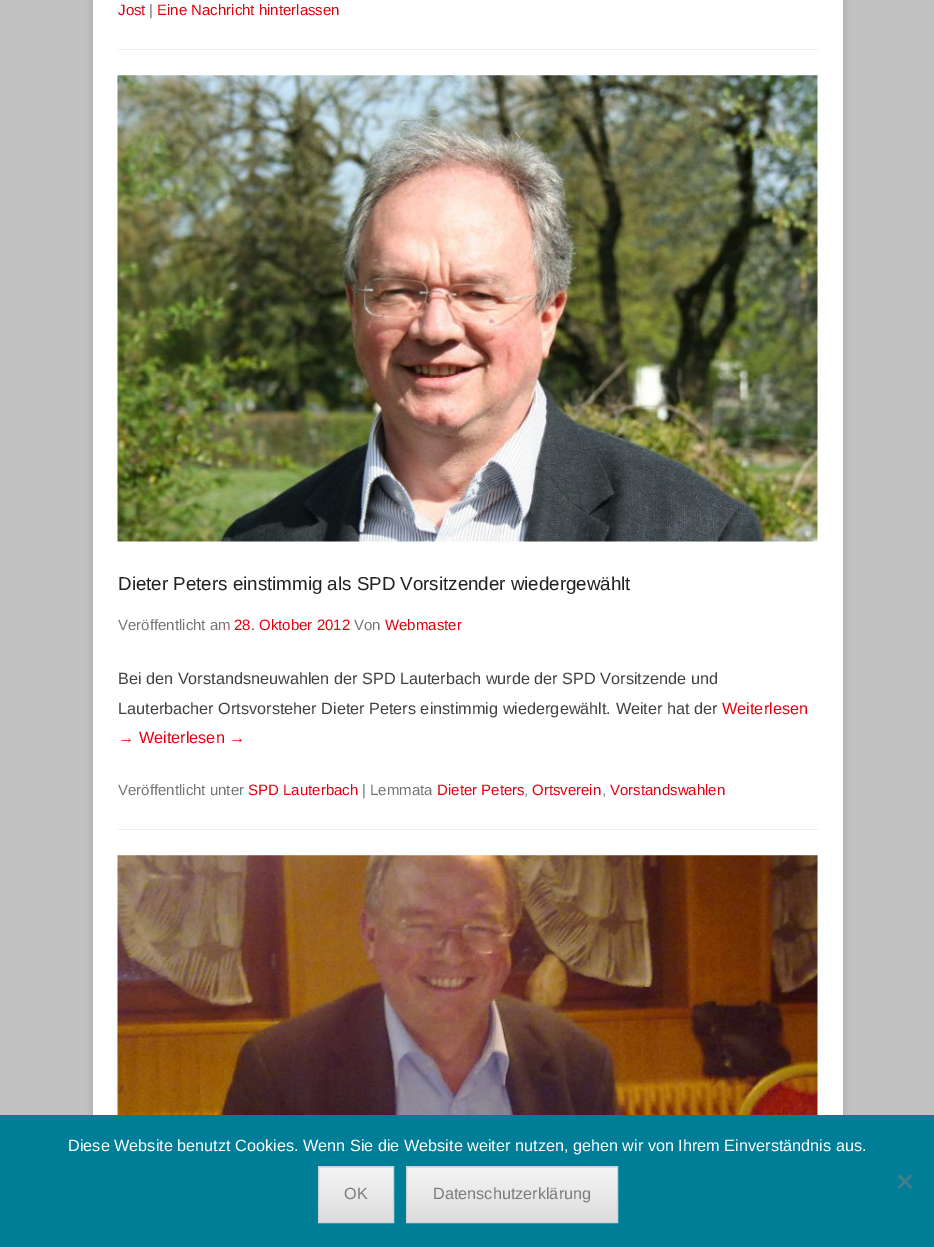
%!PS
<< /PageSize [934 1247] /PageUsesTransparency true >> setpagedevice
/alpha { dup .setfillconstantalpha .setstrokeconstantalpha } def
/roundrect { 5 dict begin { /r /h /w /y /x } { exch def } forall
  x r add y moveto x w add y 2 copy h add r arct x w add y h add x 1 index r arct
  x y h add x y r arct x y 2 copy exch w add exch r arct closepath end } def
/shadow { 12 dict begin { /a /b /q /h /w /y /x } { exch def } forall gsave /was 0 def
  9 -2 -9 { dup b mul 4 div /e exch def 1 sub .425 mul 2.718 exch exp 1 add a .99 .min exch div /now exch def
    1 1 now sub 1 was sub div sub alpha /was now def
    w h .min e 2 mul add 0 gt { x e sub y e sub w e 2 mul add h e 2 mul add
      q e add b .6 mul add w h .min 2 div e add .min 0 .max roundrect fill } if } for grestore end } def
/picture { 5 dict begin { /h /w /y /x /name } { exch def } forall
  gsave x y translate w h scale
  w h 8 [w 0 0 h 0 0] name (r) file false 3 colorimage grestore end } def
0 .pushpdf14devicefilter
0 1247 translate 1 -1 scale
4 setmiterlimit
0.757 setgray
0 0 934 1247 rectfill
0.392 setgray
93 -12 750 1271 0 4 0.3 shadow
1 setgray
93 0 750 1115 rectfill
0.933 setgray
118 49 700 1 rectfill
/LiberationSans-Regular [15 0 0 -15 0 0] selectfont
0.89 0 0.059 setrgbcolor
118 15 moveto (Jost) show
0.459 setgray
149 15 moveto (|) show
0.89 0 0.059 setrgbcolor
157 15 moveto (Eine Nachricht hinterlassen) show
0.933 setgray
118 829 700 1 rectfill
(img1.rgb) 117 75 701 467 picture
/LiberationSans-Regular [18.75 0 0 -18.75 0 0] selectfont
0.133 setgray
118 590 moveto (Dieter Peters einstimmig als SPD Vorsitzender wiedergewählt) show
/LiberationSans-Regular [15 0 0 -15 0 0] selectfont
0.459 setgray
118 630 moveto (Veröffentlicht am) show
0.89 0 0.059 setrgbcolor
234 630 moveto (28. Oktober 2012) show
0.459 setgray
354 630 moveto (Von) show
0.89 0 0.059 setrgbcolor
385 630 moveto (Webmaster) show
/LiberationSans-Regular [16.25 0 0 -16.25 0 0] selectfont
0.251 setgray
118 684 moveto (Bei den Vorstandsneuwahlen der SPD Lauterbach wurde der SPD Vorsitzende und) show
118 714 moveto (Lauterbacher Ortsvorsteher Dieter Peters einstimmig wiedergewählt. Weiter hat der) show
0.89 0 0.059 setrgbcolor
722 714 moveto (Weiterlesen) show
118 743 moveto (→ Weiterlesen →) show
/LiberationSans-Regular [15 0 0 -15 0 0] selectfont
0.459 setgray
118 795 moveto (Veröffentlicht unter) show
0.89 0 0.059 setrgbcolor
248 795 moveto (SPD Lauterbach) show
0.459 setgray
362 795 moveto (| Lemmata) show
0.89 0 0.059 setrgbcolor
437 795 moveto (Dieter Peters) show
0.459 setgray
524 795 moveto (,) show
0.89 0 0.059 setrgbcolor
532 795 moveto (Ortsverein) show
0.459 setgray
602 795 moveto (,) show
0.89 0 0.059 setrgbcolor
610 795 moveto (Vorstandswahlen) show
(img2.rgb) 117 855 701 260 picture
0 0.494 0.596 setrgbcolor
0 1115 934 132 rectfill
/LiberationSans-Regular [16.25 0 0 -16.25 0 0] selectfont
1 setgray
68 1151 moveto (Diese Website benutzt Cookies. Wenn Sie die Website weiter nutzen, gehen wir von Ihrem Einverständnis aus.) show
0.251 0.498 0.549 setrgbcolor
newpath 910.5 1174 moveto 912.5 1176 lineto 899.5 1189 lineto 897.5 1187.5 lineto closepath fill
newpath 897.5 1176 moveto 899.5 1174 lineto 912.5 1187.5 lineto 910.5 1189 lineto closepath fill
0.867 setgray
319 1167 74 55 rectfill
gsave newpath 319 1168 moveto 393 1168 lineto 393 1215 lineto 319 1215 lineto closepath clip newpath
<< /ShadingType 2 /ColorSpace /DeviceRGB /Coords [356 1168 356 1221] /Extend [true true] /Function << /FunctionType 2 /Domain [0 1] /C0 [0.957 0.957 0.957] /C1 [0.867 0.867 0.867] /N 1 >> >> shfill grestore
0.824 setgray
318.5 1166.5 75 56 rectstroke
0.486 setgray
344 1199 moveto (OK) show
0.867 setgray
407 1167 210 55 rectfill
gsave newpath 407 1168 moveto 617 1168 lineto 617 1215 lineto 407 1215 lineto closepath clip newpath
<< /ShadingType 2 /ColorSpace /DeviceRGB /Coords [512 1168 512 1221] /Extend [true true] /Function << /FunctionType 2 /Domain [0 1] /C0 [0.957 0.957 0.957] /C1 [0.867 0.867 0.867] /N 1 >> >> shfill grestore
0.824 setgray
406.5 1166.5 211 56 rectstroke
0.486 setgray
433 1199 moveto (Datenschutzerklärung) show
.poppdf14devicefilter showpage
